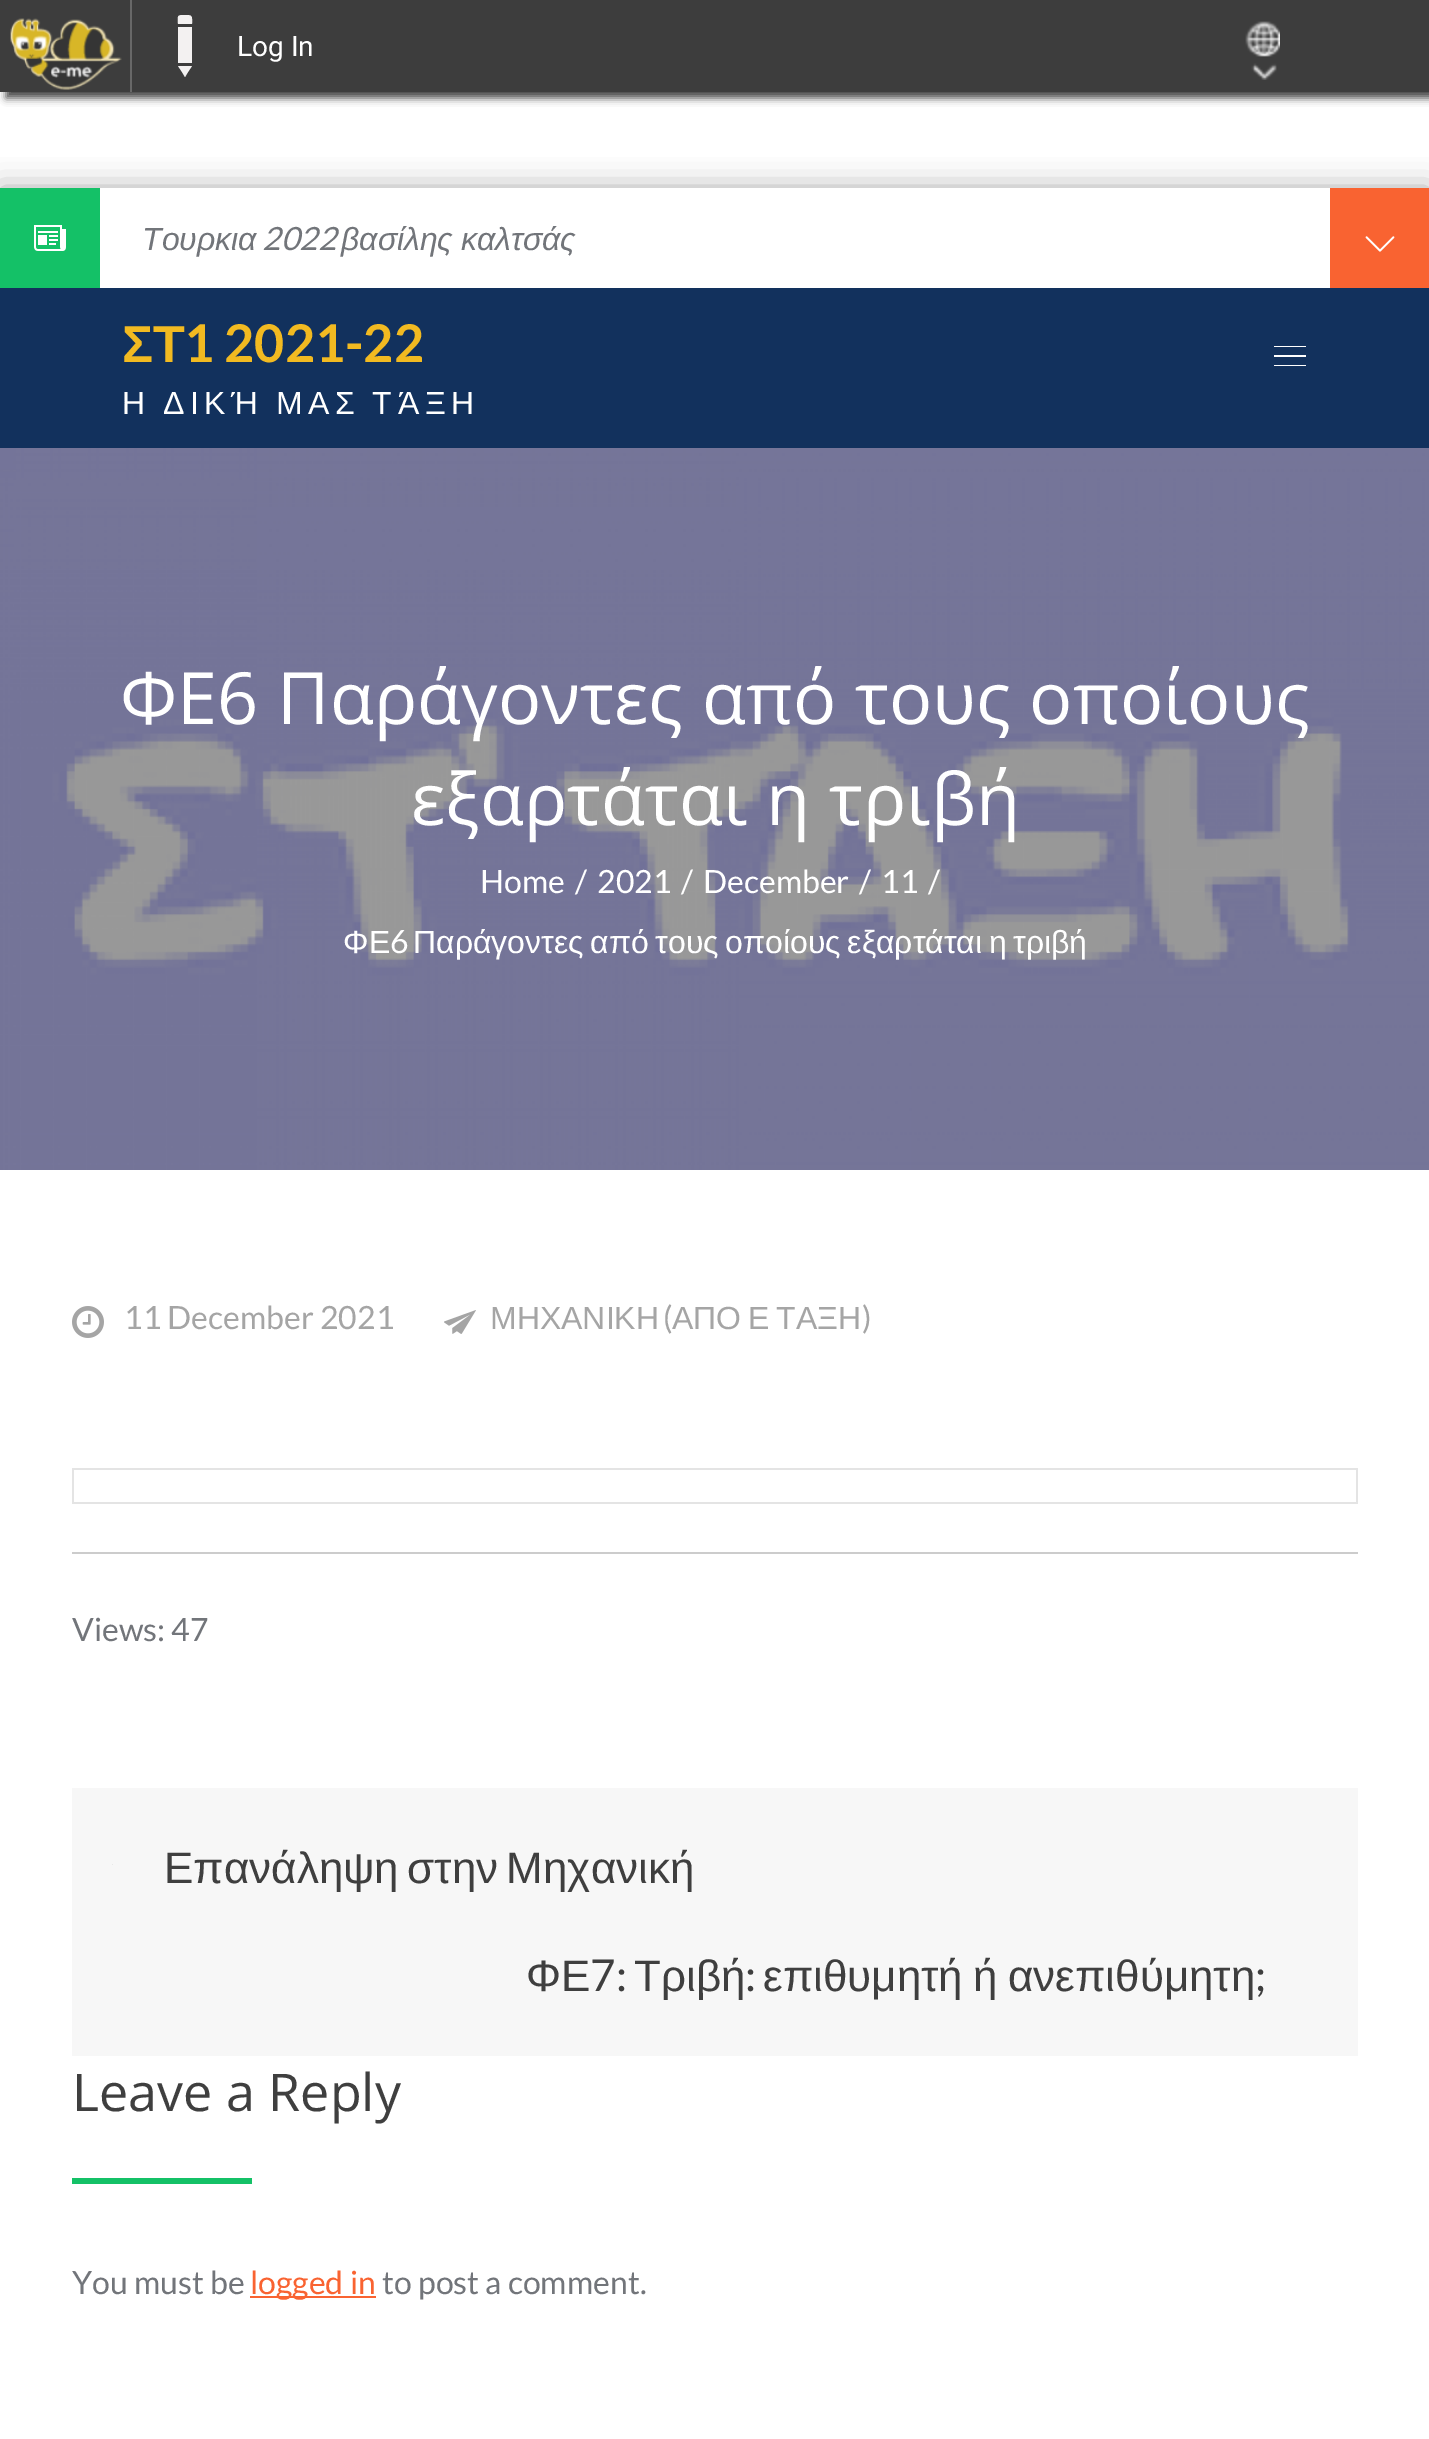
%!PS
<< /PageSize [1429 2439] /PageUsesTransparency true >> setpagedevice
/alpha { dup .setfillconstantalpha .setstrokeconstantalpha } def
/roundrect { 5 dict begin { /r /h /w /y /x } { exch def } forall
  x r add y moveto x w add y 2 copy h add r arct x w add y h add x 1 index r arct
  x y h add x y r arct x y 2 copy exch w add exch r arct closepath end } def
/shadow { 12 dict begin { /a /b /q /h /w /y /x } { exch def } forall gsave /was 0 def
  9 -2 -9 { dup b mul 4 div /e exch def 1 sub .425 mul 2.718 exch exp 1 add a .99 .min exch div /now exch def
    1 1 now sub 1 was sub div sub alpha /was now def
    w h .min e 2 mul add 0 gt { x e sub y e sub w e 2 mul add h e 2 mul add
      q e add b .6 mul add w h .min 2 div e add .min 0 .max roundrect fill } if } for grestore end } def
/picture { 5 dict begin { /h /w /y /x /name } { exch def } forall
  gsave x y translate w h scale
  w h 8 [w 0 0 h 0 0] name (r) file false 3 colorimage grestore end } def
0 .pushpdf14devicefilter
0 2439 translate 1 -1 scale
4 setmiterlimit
1 setgray
0 0 1429 2439 rectfill
0.267 setgray
6 6 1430 92 0 4 1 shadow
0.239 setgray
0 0 1429 92 rectfill
(img1.rgb) 10 18 112 72 picture
0.408 setgray
130 0 2 92 rectfill
0.953 0.945 0.945 setrgbcolor
newpath 178 27 moveto 192 27 lineto 192 63 lineto 178 63 lineto closepath 188 72 moveto 192 66 lineto 178 66 lineto 182 72 lineto closepath 182 72 moveto 185 77 lineto 188 72 lineto closepath 192 24 moveto 192 16 193 15 185 15 curveto 176 15 178 16 178 24 curveto closepath fill
/Roboto-Regular [28 0 0 -28 0 0] selectfont
1 setgray
237 56 moveto (Log In) show
(img2.rgb) 1245 21 35 59 picture
gsave
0 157 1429 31 rectclip
0.667 setgray
0 188 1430 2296 0 15 1 shadow
grestore
0.078 0.757 0.404 setrgbcolor
0 188 100 100 rectfill
(img3.rgb) 34 225 32 26 picture
/LiberationSans-Italic [32 0 0 -32 0 0] selectfont
0.447 0.459 0.478 setrgbcolor
142 250 moveto (Τουρκια) show
/Lato-Italic [32 0 0 -32 0 0] selectfont
262 250 moveto (2022) show
/LiberationSans-Italic [32 0 0 -32 0 0] selectfont
341 250 moveto -1 0 32 (βασίλης καλτσάς) widthshow
0.976 0.388 0.192 setrgbcolor
1330 188 99 100 rectfill
(img4.rgb) 1365 236 30 16 picture
0.071 0.192 0.365 setrgbcolor
0 288 1429 160 rectfill
/LiberationSans-Bold [52 0 0 -52 0 0] selectfont
0.949 0.729 0.129 setrgbcolor
122 362 moveto (ΣΤ) show
/Lato-Bold [52 0 0 -52 0 0] selectfont
184 362 moveto (1 2021-22) show
/LiberationSans-Regular [32 0 0 -32 0 0] selectfont
1 setgray
122 414 moveto -3 0 32 5.75 0 (Η ΔΙΚΉ ΜΑΣ ΤΆΞΗ) awidthshow
1274 346 32 1 rectfill
1274 355 32 2 rectfill
1274 365 32 1 rectfill
(img5.rgb) 0 448 1429 722 picture
/OpenSans-Regular [72 0 0 -72 0 0] selectfont
120 724 moveto (ΦΕ6 Παράγοντες από τους οποίους) show
411 825 moveto (εξαρτάται η τριβή) show
/Lato-Regular [32 0 0 -32 0 0] selectfont
480 893 moveto (Home) show
575 893 moveto (/) show
597 893 moveto (2021) show
681 893 moveto (/) show
703 893 moveto (December) show
859 893 moveto (/) show
881 893 moveto (11) show
928 893 moveto (/) show
/LiberationSans-Regular [32 0 0 -32 0 0] selectfont
343 953 moveto (ΦΕ) show
/Lato-Regular [32 0 0 -32 0 0] selectfont
390 953 moveto (6) show
/LiberationSans-Regular [32 0 0 -32 0 0] selectfont
413 953 moveto -2.25 0 32 (Παράγοντες από τους οποίους εξαρτάται η τριβή) widthshow
(img6.rgb) 72 1306 32 32 picture
/Lato-Regular [32 0 0 -32 0 0] selectfont
0.647 setgray
124 1329 moveto (11 December 2021) show
(img7.rgb) 444 1310 32 24 picture
/LiberationSans-Regular [32 0 0 -32 0 0] selectfont
490 1329 moveto (ΜΗΧΑΝΙΚΗ) show
/Lato-Regular [32 0 0 -32 0 0] selectfont
663 1329 moveto (\() show
/LiberationSans-Regular [32 0 0 -32 0 0] selectfont
672 1329 moveto -2 0 32 (ΑΠΟ Ε ΤΑΞΗ) widthshow
/Lato-Regular [32 0 0 -32 0 0] selectfont
862 1329 moveto (\)) show
0.894 setgray
72 1468 1286 2 rectfill
1356 1468 2 36 rectfill
72 1502 1286 2 rectfill
72 1468 2 36 rectfill
0.8 setgray
72 1552 1286 2 rectfill
0.447 0.459 0.478 setrgbcolor
72 1641 moveto (Views: 47) show
0.969 setgray
72 1788 1286 268 rectfill
0.91 setgray
112 1864 1 1 rectfill
/LiberationSans-Regular [44 0 0 -44 0 0] selectfont
0.247 setgray
164 1883 moveto -4 0 32 (Επανάληψη στην Μηχανική) widthshow
526 1991 moveto (ΦΕ) show
/Lato-Regular [44 0 0 -44 0 0] selectfont
590 1991 moveto (7:) show
/LiberationSans-Regular [44 0 0 -44 0 0] selectfont
634 1991 moveto (Τριβή) show
/Lato-Regular [44 0 0 -44 0 0] selectfont
745 1991 moveto (:) show
/LiberationSans-Regular [44 0 0 -44 0 0] selectfont
763 1991 moveto -2 0 32 (επιθυμητή ή ανεπιθύμητη) widthshow
/Lato-Regular [44 0 0 -44 0 0] selectfont
1255 1991 moveto (;) show
/OpenSans-Regular [52 0 0 -52 0 0] selectfont
72 2111 moveto (Leave a Reply) show
0.078 0.757 0.404 setrgbcolor
72 2178 180 6 rectfill
/Lato-Regular [32 0 0 -32 0 0] selectfont
0.447 0.459 0.478 setrgbcolor
72 2294 moveto (You must be) show
0.976 0.388 0.192 setrgbcolor
250 2296 126 2 rectfill
250 2294 moveto (logged in) show
0.447 0.459 0.478 setrgbcolor
382 2294 moveto (to post a comment.) show
.poppdf14devicefilter showpage
